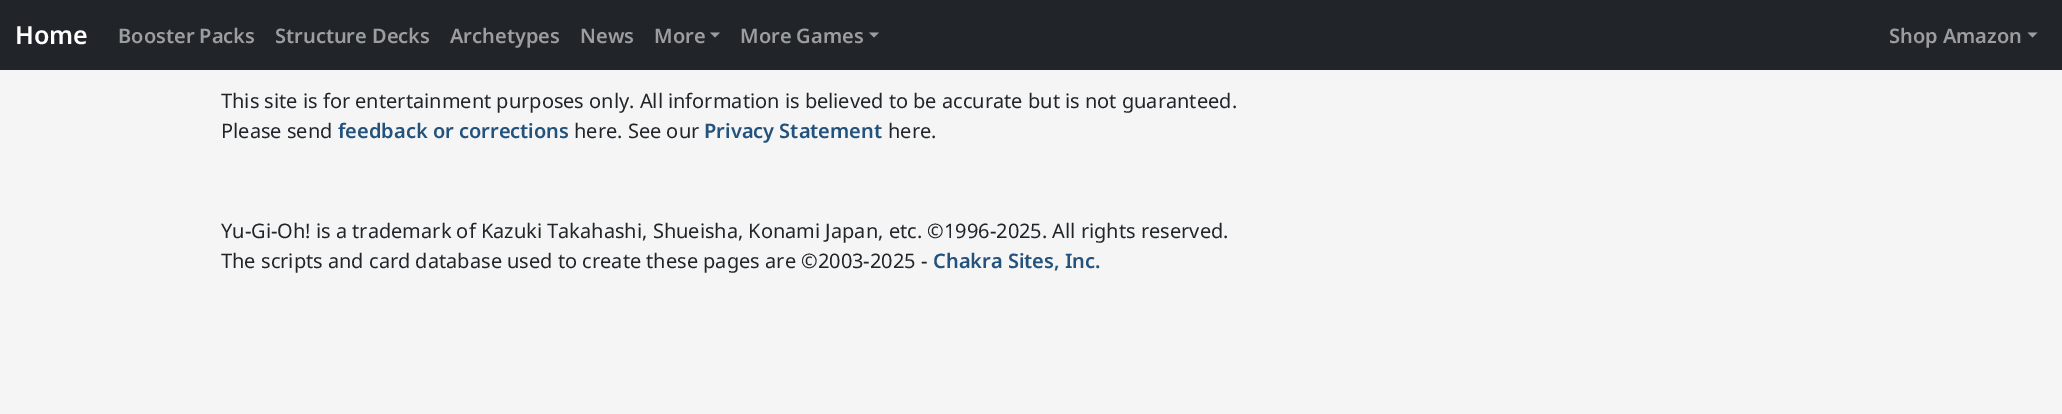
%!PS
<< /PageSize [2062 414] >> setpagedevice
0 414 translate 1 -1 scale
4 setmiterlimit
0.961 setgray
0 0 2062 414 rectfill
0.129 0.145 0.161 setrgbcolor
0 0 2062 70 rectfill
/NotoSans-SemiBold [25 0 0 -25 0 0] selectfont
1 setgray
15 44 moveto (Home) show
/NotoSans-SemiBold [20 0 0 -20 0 0] selectfont
0.608 0.616 0.624 setrgbcolor
118 43 moveto (Booster Packs) show
275 43 moveto (Structure Decks) show
450 43 moveto (Archetypes) show
580 43 moveto (News) show
654 43 moveto (More) show
newpath 710 32.5 moveto 720 32.5 lineto 715 37.5 lineto closepath fill
740 43 moveto (More Games) show
newpath 869 32.5 moveto 879 32.5 lineto 874 37.5 lineto closepath fill
1889 43 moveto (Shop Amazon) show
newpath 2027.5 32.5 moveto 2037.5 32.5 lineto 2032.5 37.5 lineto closepath fill
/NotoSans-Regular [20 0 0 -20 0 0] selectfont
0.129 0.145 0.161 setrgbcolor
221 108 moveto (This site is for entertainment purposes only. All information is believed to be accurate but is not guaranteed.) show
221 138 moveto (Please send) show
/NotoSans-SemiBold [20 0 0 -20 0 0] selectfont
0.137 0.322 0.486 setrgbcolor
338 138 moveto (feedback or corrections) show
/NotoSans-Regular [20 0 0 -20 0 0] selectfont
0.129 0.145 0.161 setrgbcolor
574 138 moveto (here. See our) show
/NotoSans-SemiBold [20 0 0 -20 0 0] selectfont
0.137 0.322 0.486 setrgbcolor
704 138 moveto (Privacy Statement) show
/NotoSans-Regular [20 0 0 -20 0 0] selectfont
0.129 0.145 0.161 setrgbcolor
888 138 moveto (here.) show
221 238 moveto (Yu-Gi-Oh! is a trademark of Kazuki Takahashi, Shueisha, Konami Japan, etc. ©1996-2025. All rights reserved.) show
221 268 moveto (The scripts and card database used to create these pages are ©2003-2025 -) show
/NotoSans-SemiBold [20 0 0 -20 0 0] selectfont
0.137 0.322 0.486 setrgbcolor
933 268 moveto (Chakra Sites, Inc.) show
showpage
